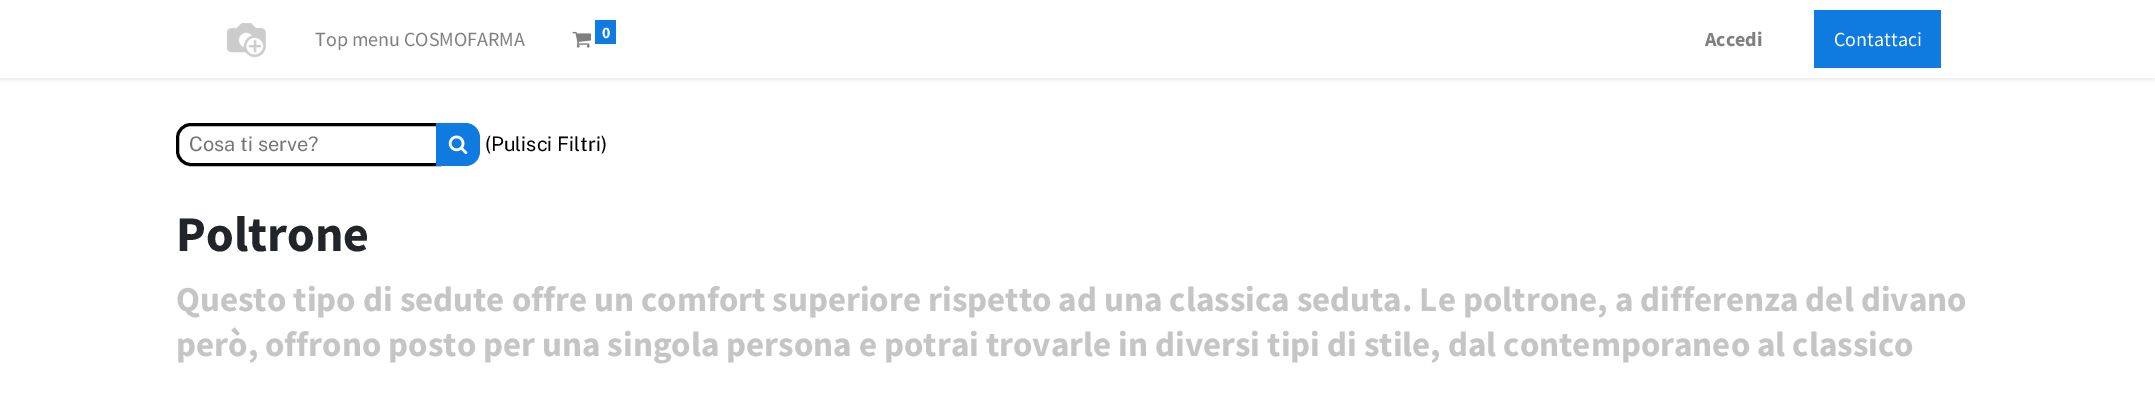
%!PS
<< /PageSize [2155 415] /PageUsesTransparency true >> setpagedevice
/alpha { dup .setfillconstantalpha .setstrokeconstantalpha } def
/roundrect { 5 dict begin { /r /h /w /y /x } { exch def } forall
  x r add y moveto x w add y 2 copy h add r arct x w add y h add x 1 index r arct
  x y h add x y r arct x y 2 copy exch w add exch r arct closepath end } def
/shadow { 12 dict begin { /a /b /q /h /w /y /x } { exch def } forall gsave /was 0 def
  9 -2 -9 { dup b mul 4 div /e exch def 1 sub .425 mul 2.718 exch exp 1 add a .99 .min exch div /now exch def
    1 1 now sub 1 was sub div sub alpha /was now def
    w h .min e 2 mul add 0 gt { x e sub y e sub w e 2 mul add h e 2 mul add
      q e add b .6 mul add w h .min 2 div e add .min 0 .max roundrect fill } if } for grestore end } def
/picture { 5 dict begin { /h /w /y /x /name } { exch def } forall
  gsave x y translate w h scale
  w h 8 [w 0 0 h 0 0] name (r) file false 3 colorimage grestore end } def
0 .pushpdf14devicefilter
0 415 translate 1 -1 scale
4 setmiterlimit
1 setgray
0 0 2155 415 rectfill
0 setgray
0 3 2155 77 0 2.5 0.07 shadow
1 setgray
0 0 2155 78 rectfill
(img1.rgb) 226 23 40 35 picture
/SourceSansPro-Regular [20 0 0 -20 0 0] selectfont
0.502 setgray
315 46 moveto (Top menu COSMOFARMA) show
(img2.rgb) 572 31 20 17 picture
0.059 0.478 0.875 setrgbcolor
595 20 21 24 rectfill
/SourceSansPro-Bold [16 0 0 -16 0 0] selectfont
1 setgray
602 38 moveto (0) show
/SourceSansPro-Bold [20 0 0 -20 0 0] selectfont
0.502 setgray
1705 46 moveto (Accedi) show
0.059 0.478 0.875 setrgbcolor
1814 10 127 58 rectfill
/SourceSansPro-Regular [20 0 0 -20 0 0] selectfont
1 setgray
1834 46 moveto (Contattaci) show
0 setgray
3 setlinewidth
newpath 191 124.5 moveto 439.5 124.5 lineto 439.5 164.5 lineto 191 164.5 lineto 183.5 164.5 177.5 158.5 177.5 151 curveto 177.5 138 lineto 177.5 130.5 183.5 124.5 191 124.5 curveto closepath stroke
/PublicSans-Regular [20 0 0 -20 0 0] selectfont
0.459 setgray
189 151 moveto (Cosa ti serve?) show
0.059 0.478 0.875 setrgbcolor
newpath 436 123 moveto 465 123 lineto 473.5 123 480 129.5 480 138 curveto 480 151 lineto 480 159.5 473.5 166 465 166 curveto 436 166 lineto closepath fill
(img3.rgb) 448 135 20 20 picture
0 setgray
485 151 moveto (\(Pulisci Filtri\)) show
/SourceSansPro-Bold [50 0 0 -50 0 0] selectfont
0.129 0.145 0.161 setrgbcolor
176 251 moveto (Poltrone) show
/SourceSansPro-Bold [35 0 0 -35 0 0] selectfont
0.773 setgray
176 311 moveto (Questo tipo di sedute offre un comfort superiore rispetto ad una classica seduta. Le poltrone, a differenza del divano) show
176 356 moveto (però, offrono posto per una singola persona e potrai trovarle in diversi tipi di stile, dal contemporaneo al classico) show
.poppdf14devicefilter showpage
